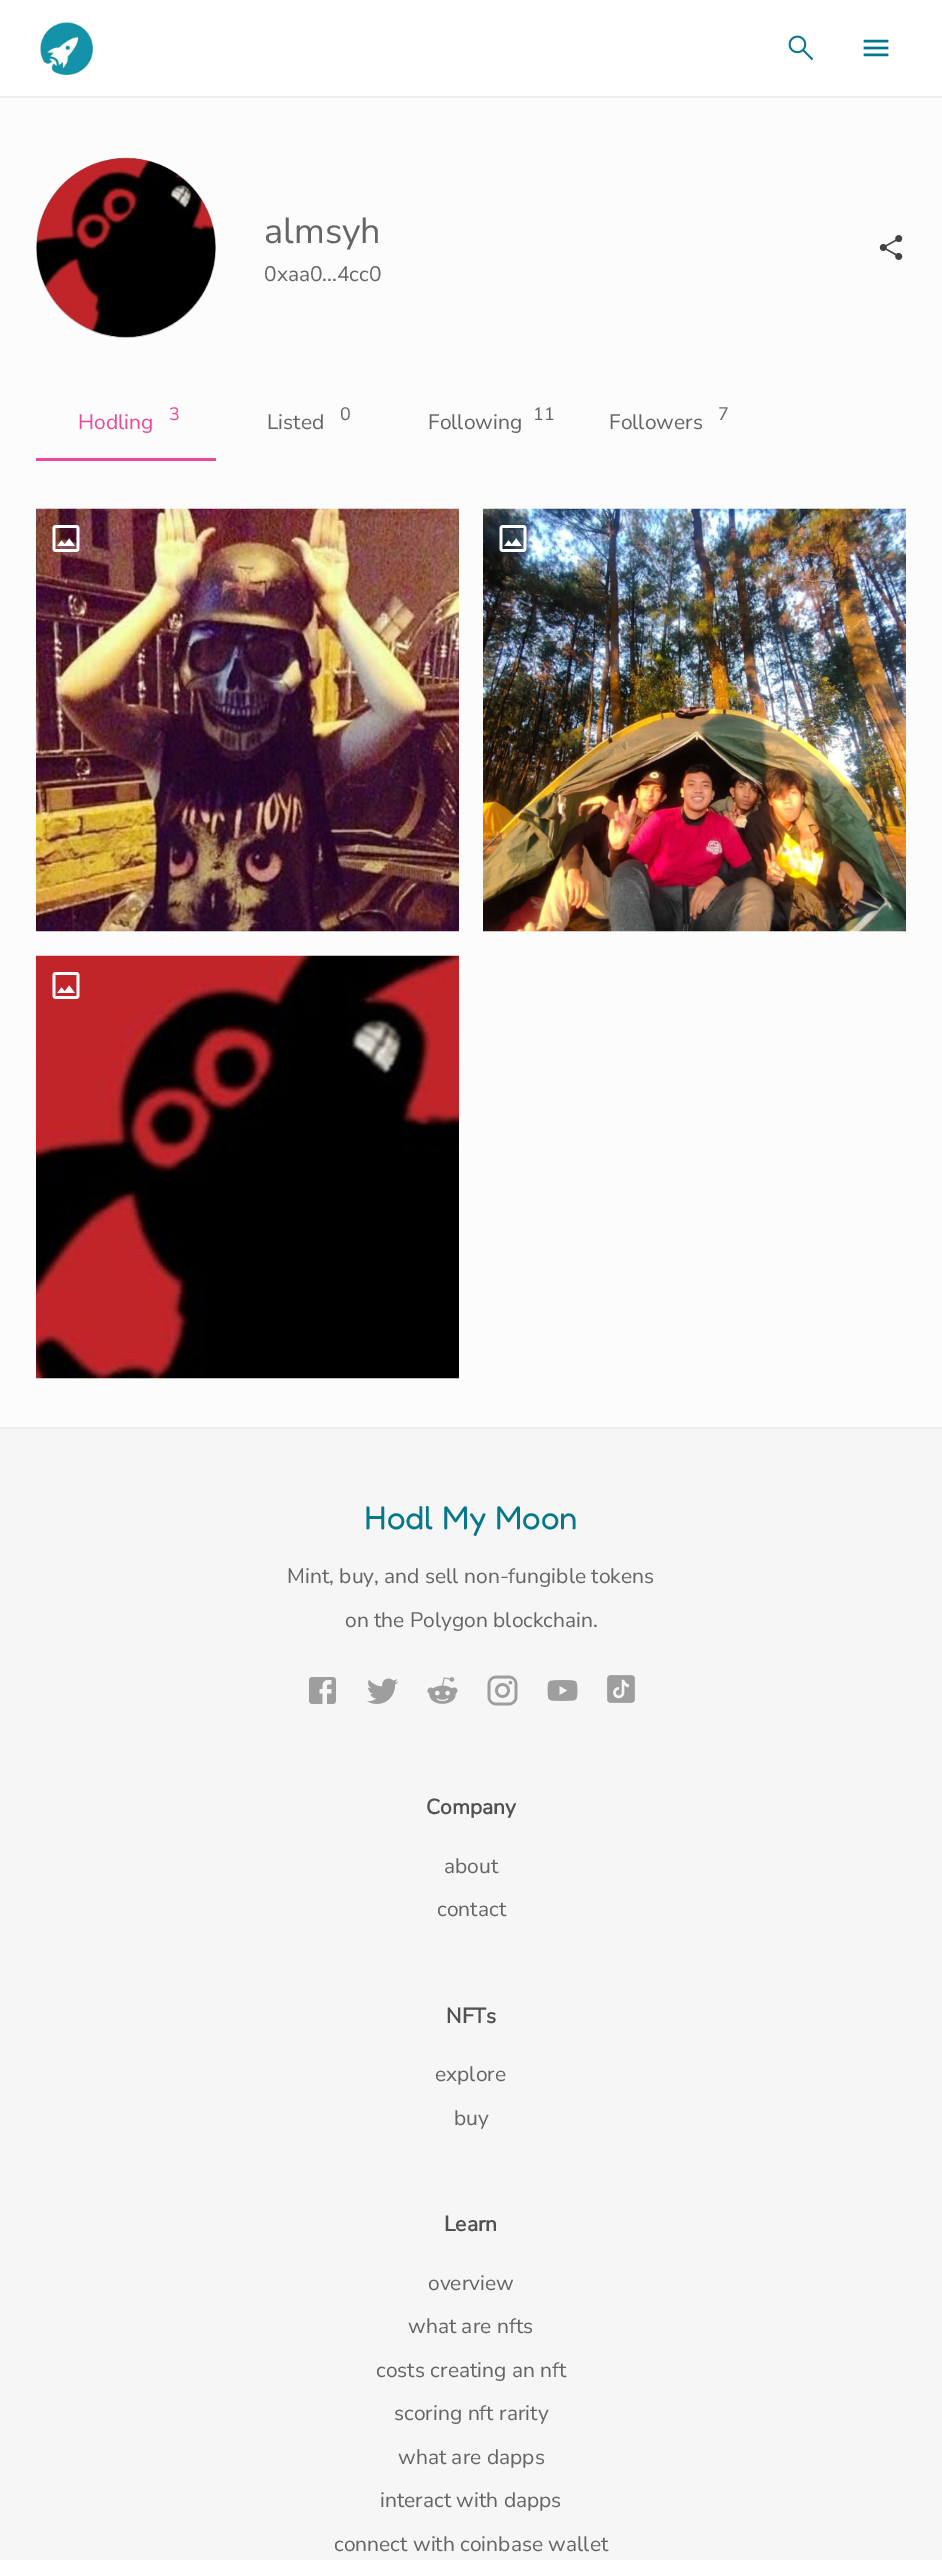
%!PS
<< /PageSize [942 2560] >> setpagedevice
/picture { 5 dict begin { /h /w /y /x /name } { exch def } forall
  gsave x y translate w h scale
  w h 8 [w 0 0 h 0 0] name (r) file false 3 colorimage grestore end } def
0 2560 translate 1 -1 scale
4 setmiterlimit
0.988 setgray
0 0 942 2560 rectfill
1 setgray
0 0 942 96 rectfill
0.933 setgray
0 96 942 2 rectfill
(img1.rgb) 40 22 53 53 picture
(img2.rgb) 788 35 26 26 picture
(img3.rgb) 863 39 26 18 picture
0.741 setgray
newpath 126 248 90 0 360 arc closepath fill
(img4.rgb) 36 157 180 181 picture
/NunitoSans-Regular [36 0 0 -36 0 0] selectfont
0.396 setgray
264 243 moveto (almsyh) show
/NunitoSans-Regular [21 0 0 -21 0 0] selectfont
264 281 moveto (0xaa0...4cc0) show
(img5.rgb) 879 235 24 25 picture
0.925 0.282 0.6 setrgbcolor
78 429 moveto (Hodling) show
/NunitoSans-Regular [18 0 0 -18 0 0] selectfont
169 420 moveto (3) show
/NunitoSans-Regular [21 0 0 -21 0 0] selectfont
0.396 setgray
267 429 moveto (Listed) show
/NunitoSans-Regular [18 0 0 -18 0 0] selectfont
340 420 moveto (0) show
/NunitoSans-Regular [21 0 0 -21 0 0] selectfont
428 429 moveto (Following) show
/NunitoSans-Regular [18 0 0 -18 0 0] selectfont
533 420 moveto (11) show
/NunitoSans-Regular [21 0 0 -21 0 0] selectfont
609 429 moveto (Followers) show
/NunitoSans-Regular [18 0 0 -18 0 0] selectfont
718 420 moveto (7) show
0.925 0.282 0.6 setrgbcolor
36 458 180 3 rectfill
(img6.rgb) 36 508 423 424 picture
(img7.rgb) 52 525 28 27 picture
(img8.rgb) 483 508 423 424 picture
(img9.rgb) 499 525 28 27 picture
(img10.rgb) 36 955 423 424 picture
(img11.rgb) 52 972 28 27 picture
0.965 setgray
0 1429 942 1131 rectfill
0.933 setgray
0 1427 942 2 rectfill
/Fredoka-Light [33 0 0 -33 0 0] selectfont
0.02 0.467 0.541 setrgbcolor
364 1529 moveto (Hodl My Moon) show
/NunitoSans-Regular [21 0 0 -21 0 0] selectfont
0.396 setgray
287 1583 moveto (Mint, buy, and sell non-fungible tokens) show
345 1627 moveto (on the Polygon blockchain.) show
(img12.rgb) 309 1677 27 27 picture
(img13.rgb) 367 1678 31 26 picture
(img14.rgb) 427 1677 31 27 picture
(img15.rgb) 487 1675 31 31 picture
(img16.rgb) 547 1680 31 21 picture
(img17.rgb) 607 1675 28 28 picture
/NunitoSans-Bold [21 0 0 -21 0 0] selectfont
0.318 setgray
426 1814 moveto (Company) show
/NunitoSans-Regular [21 0 0 -21 0 0] selectfont
0.396 setgray
444 1873 moveto (about) show
437 1916 moveto (contact) show
/NunitoSans-Bold [21 0 0 -21 0 0] selectfont
0.318 setgray
446 2023 moveto (NFTs) show
/NunitoSans-Regular [21 0 0 -21 0 0] selectfont
0.396 setgray
435 2081 moveto (explore) show
454 2125 moveto (buy) show
/NunitoSans-Bold [21 0 0 -21 0 0] selectfont
0.318 setgray
444 2231 moveto (Learn) show
/NunitoSans-Regular [21 0 0 -21 0 0] selectfont
0.396 setgray
428 2290 moveto (overview) show
408 2333 moveto (what are nfts) show
376 2377 moveto (costs creating an nft) show
394 2420 moveto (scoring nft rarity) show
398 2464 moveto (what are dapps) show
380 2507 moveto (interact with dapps) show
334 2551 moveto (connect with coinbase wallet) show
showpage
